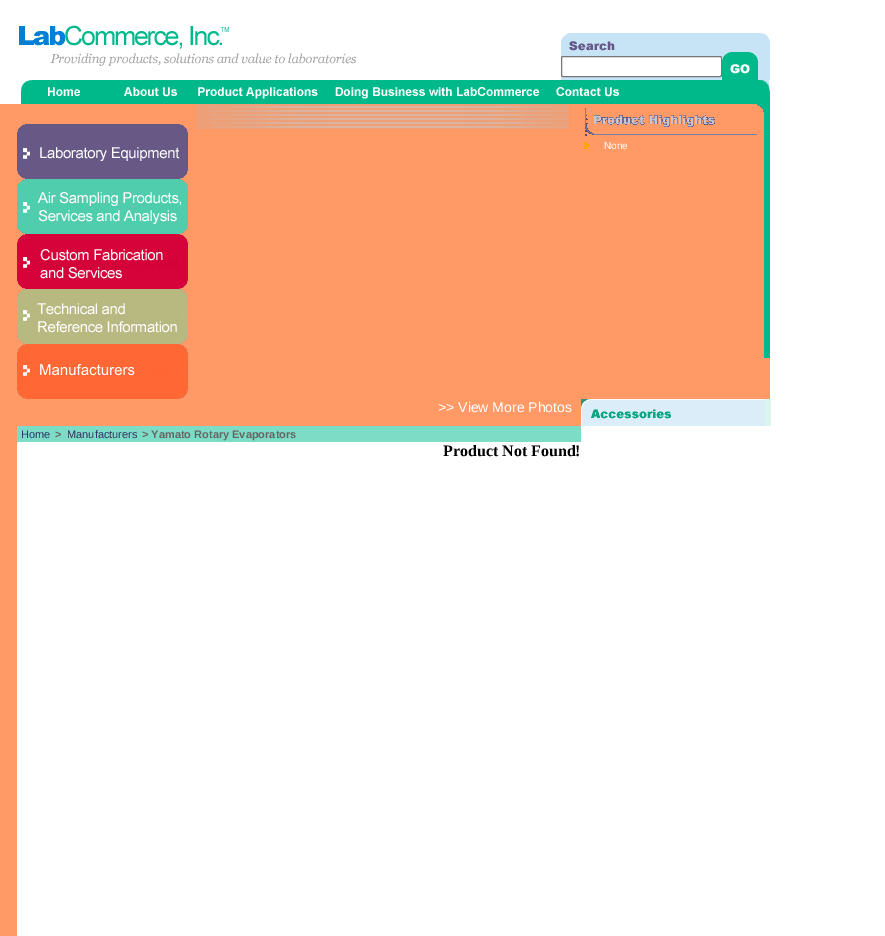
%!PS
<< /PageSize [885 936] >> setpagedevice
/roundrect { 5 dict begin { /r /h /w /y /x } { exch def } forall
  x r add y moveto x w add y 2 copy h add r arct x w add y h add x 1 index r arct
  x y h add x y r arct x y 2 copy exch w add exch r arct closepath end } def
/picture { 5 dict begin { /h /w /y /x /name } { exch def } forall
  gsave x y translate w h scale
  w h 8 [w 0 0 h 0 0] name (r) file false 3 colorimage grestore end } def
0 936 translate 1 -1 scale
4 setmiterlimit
1 setgray
0 0 885 936 rectfill
(img1.rgb) 19 25 210 24 picture
(img2.rgb) 50 53 307 13 picture
0.78 0.89 0.965 setrgbcolor
561 33 197 19 rectfill
(img3.rgb) 561 33 54 18 picture
(img4.rgb) 758 33 12 19 picture
561 52 161 28 rectfill
1 setgray
561.5 56.5 160 20 1.5 roundrect gsave fill grestore
0.463 setgray
stroke
(img5.rgb) 722 52 36 28 picture
0.78 0.89 0.965 setrgbcolor
758 52 12 28 rectfill
0 0.725 0.541 setrgbcolor
80 80 677 24 rectfill
(img6.rgb) 17 80 63 24 picture
(img7.rgb) 124 87 53 10 picture
(img8.rgb) 198 87 120 12 picture
(img9.rgb) 335 87 204 12 picture
(img10.rgb) 556 87 63 10 picture
(img11.rgb) 757 80 13 24 picture
1 0.6 0.4 setrgbcolor
0 104 757 295 rectfill
757 105 13 294 rectfill
(img12.rgb) 757 104 13 25 picture
0 0.725 0.541 setrgbcolor
764 129 6 229 rectfill
(img13.rgb) 196 104 373 25 picture
(img14.rgb) 17 124 171 55 picture
(img15.rgb) 17 179 171 55 picture
(img16.rgb) 17 234 171 55 picture
(img17.rgb) 17 289 171 55 picture
(img18.rgb) 17 344 171 55 picture
(img19.rgb) 585 108 172 28 picture
(img20.rgb) 584 142 5 7 picture
/LiberationSans-Regular [10 0 0 -10 0 0] selectfont
1 setgray
604 149 moveto (None) show
1 0.6 0.4 setrgbcolor
0 399 581 27 rectfill
0.239 0.553 0.49 setrgbcolor
581 399 6 6 rectfill
(img21.rgb) 581 399 190 27 picture
/LiberationSans-Regular [14 0 0 -14 0 0] selectfont
1 setgray
438 412 moveto (>> View More Photos) show
1 0.6 0.4 setrgbcolor
0 426 17 510 rectfill
0.486 0.863 0.773 setrgbcolor
17 426 564 16 rectfill
/LiberationSans-Regular [11 0 0 -11 0 0] selectfont
0.2 0.2 0.4 setrgbcolor
21 438 moveto (Home) show
/LiberationSans-Bold [11 0 0 -11 0 0] selectfont
0.4 setgray
55 438 moveto (>) show
/LiberationSans-Regular [11 0 0 -11 0 0] selectfont
0.2 0.2 0.4 setrgbcolor
67 438 moveto (Manufacturers) show
/LiberationSans-Bold [11 0 0 -11 0 0] selectfont
0.4 setgray
142 438 moveto (> Yamato Rotary Evaporators) show
/LiberationSerif-Bold [16 0 0 -16 0 0] selectfont
0 setgray
443 456 moveto (Product Not Found!) show
showpage
